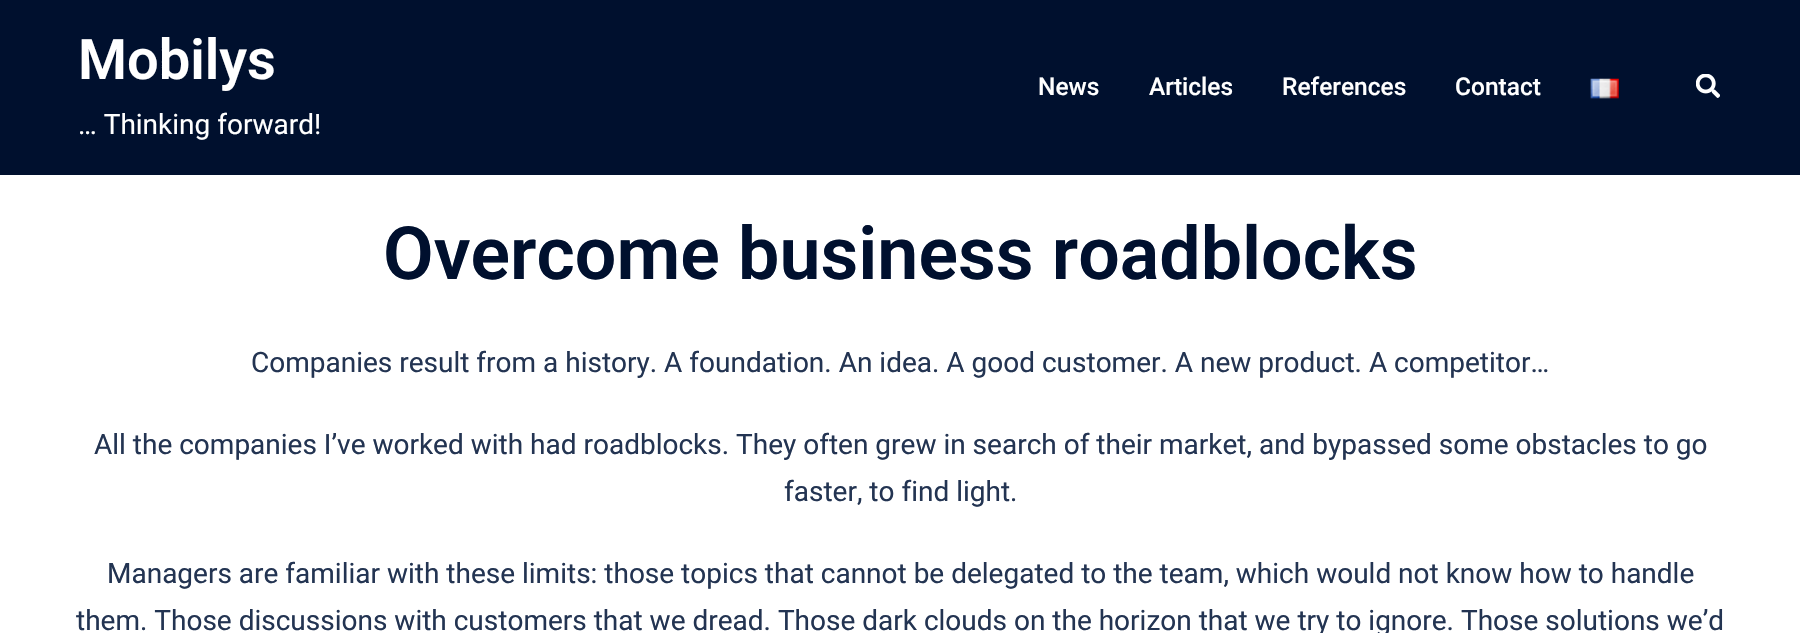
void draw(SkCanvas* canvas) {
    SkPaint paint;
    paint.setAntiAlias(true);
    auto face = [&](const char* family, int weight, float size, bool italic = false) {
        SkFontStyle style(weight, SkFontStyle::kNormal_Width,
            italic ? SkFontStyle::kItalic_Slant : SkFontStyle::kUpright_Slant);
        SkFont result(fontMgr->matchFamilyStyle(family, style), size);
        result.setSubpixel(true);
        return result;
    };
    auto write = [&](const char* s, float x, float y, const SkFont& font, SkColor color) {
        SkPaint ink(SkColor4f::FromColor(color));
        ink.setAntiAlias(true);
        canvas->drawString(s, x, y, font, ink);
    };
    auto block = [&](float x, float y, float w, float h, SkColor color) {
        SkPaint ink(SkColor4f::FromColor(color));
        ink.setAntiAlias(true);
        canvas->drawRect(SkRect::MakeXYWH(x, y, w, h), ink);
    };
    auto paste = [&](const char* path, float x, float y, float w, float h) {
        auto image = SkImages::DeferredFromEncodedData(SkData::MakeFromFileName(path));
        canvas->drawImageRect(image, SkRect::MakeXYWH(x, y, w, h), SkSamplingOptions());
    };
    canvas->clear(SK_ColorWHITE);
    block(0, 0, 1800, 175, SkColorSetRGB(0, 16, 46));
    auto kFont1 = face("Roboto", 600, 56);
    write("Mobilys", 78, 79, kFont1, SK_ColorWHITE);
    auto kFont2 = face("Roboto", 400, 28);
    write("… Thinking forward!", 78, 134, kFont2, SK_ColorWHITE);
    auto kFont3 = face("Roboto", 500, 24.5f);
    write("News", 1038, 95, kFont3, SK_ColorWHITE);
    write("Articles", 1149, 95, kFont3, SK_ColorWHITE);
    write("References", 1282, 95, kFont3, SK_ColorWHITE);
    write("Contact", 1455, 95, kFont3, SK_ColorWHITE);
    paste("pic1.png", 1590, 78, 29, 21);
    paste("pic2.png", 1696, 74, 24, 24);
    auto kFont4 = face("Roboto", 600, 73.5f);
    write("Overcome business roadblocks", 383, 279, kFont4, SkColorSetRGB(0, 16, 46));
    write("Companies result from a history. A foundation. An idea. A good customer. A new product. A competitor…", 251, 372, kFont2, SkColorSetRGB(35, 52, 82));
    write("All the companies I’ve worked with had roadblocks. They often grew in search of their market, and bypassed some obstacles to go", 94, 454, kFont2, SkColorSetRGB(35, 52, 82));
    write("faster, to find light.", 784, 501, kFont2, SkColorSetRGB(35, 52, 82));
    write("Managers are familiar with these limits: those topics that cannot be delegated to the team, which would not know how to handle", 107, 583, kFont2, SkColorSetRGB(35, 52, 82));
    write("them. Those discussions with customers that we dread. Those dark clouds on the horizon that we try to ignore. Those solutions we’d", 76, 630, kFont2, SkColorSetRGB(35, 52, 82));
}
